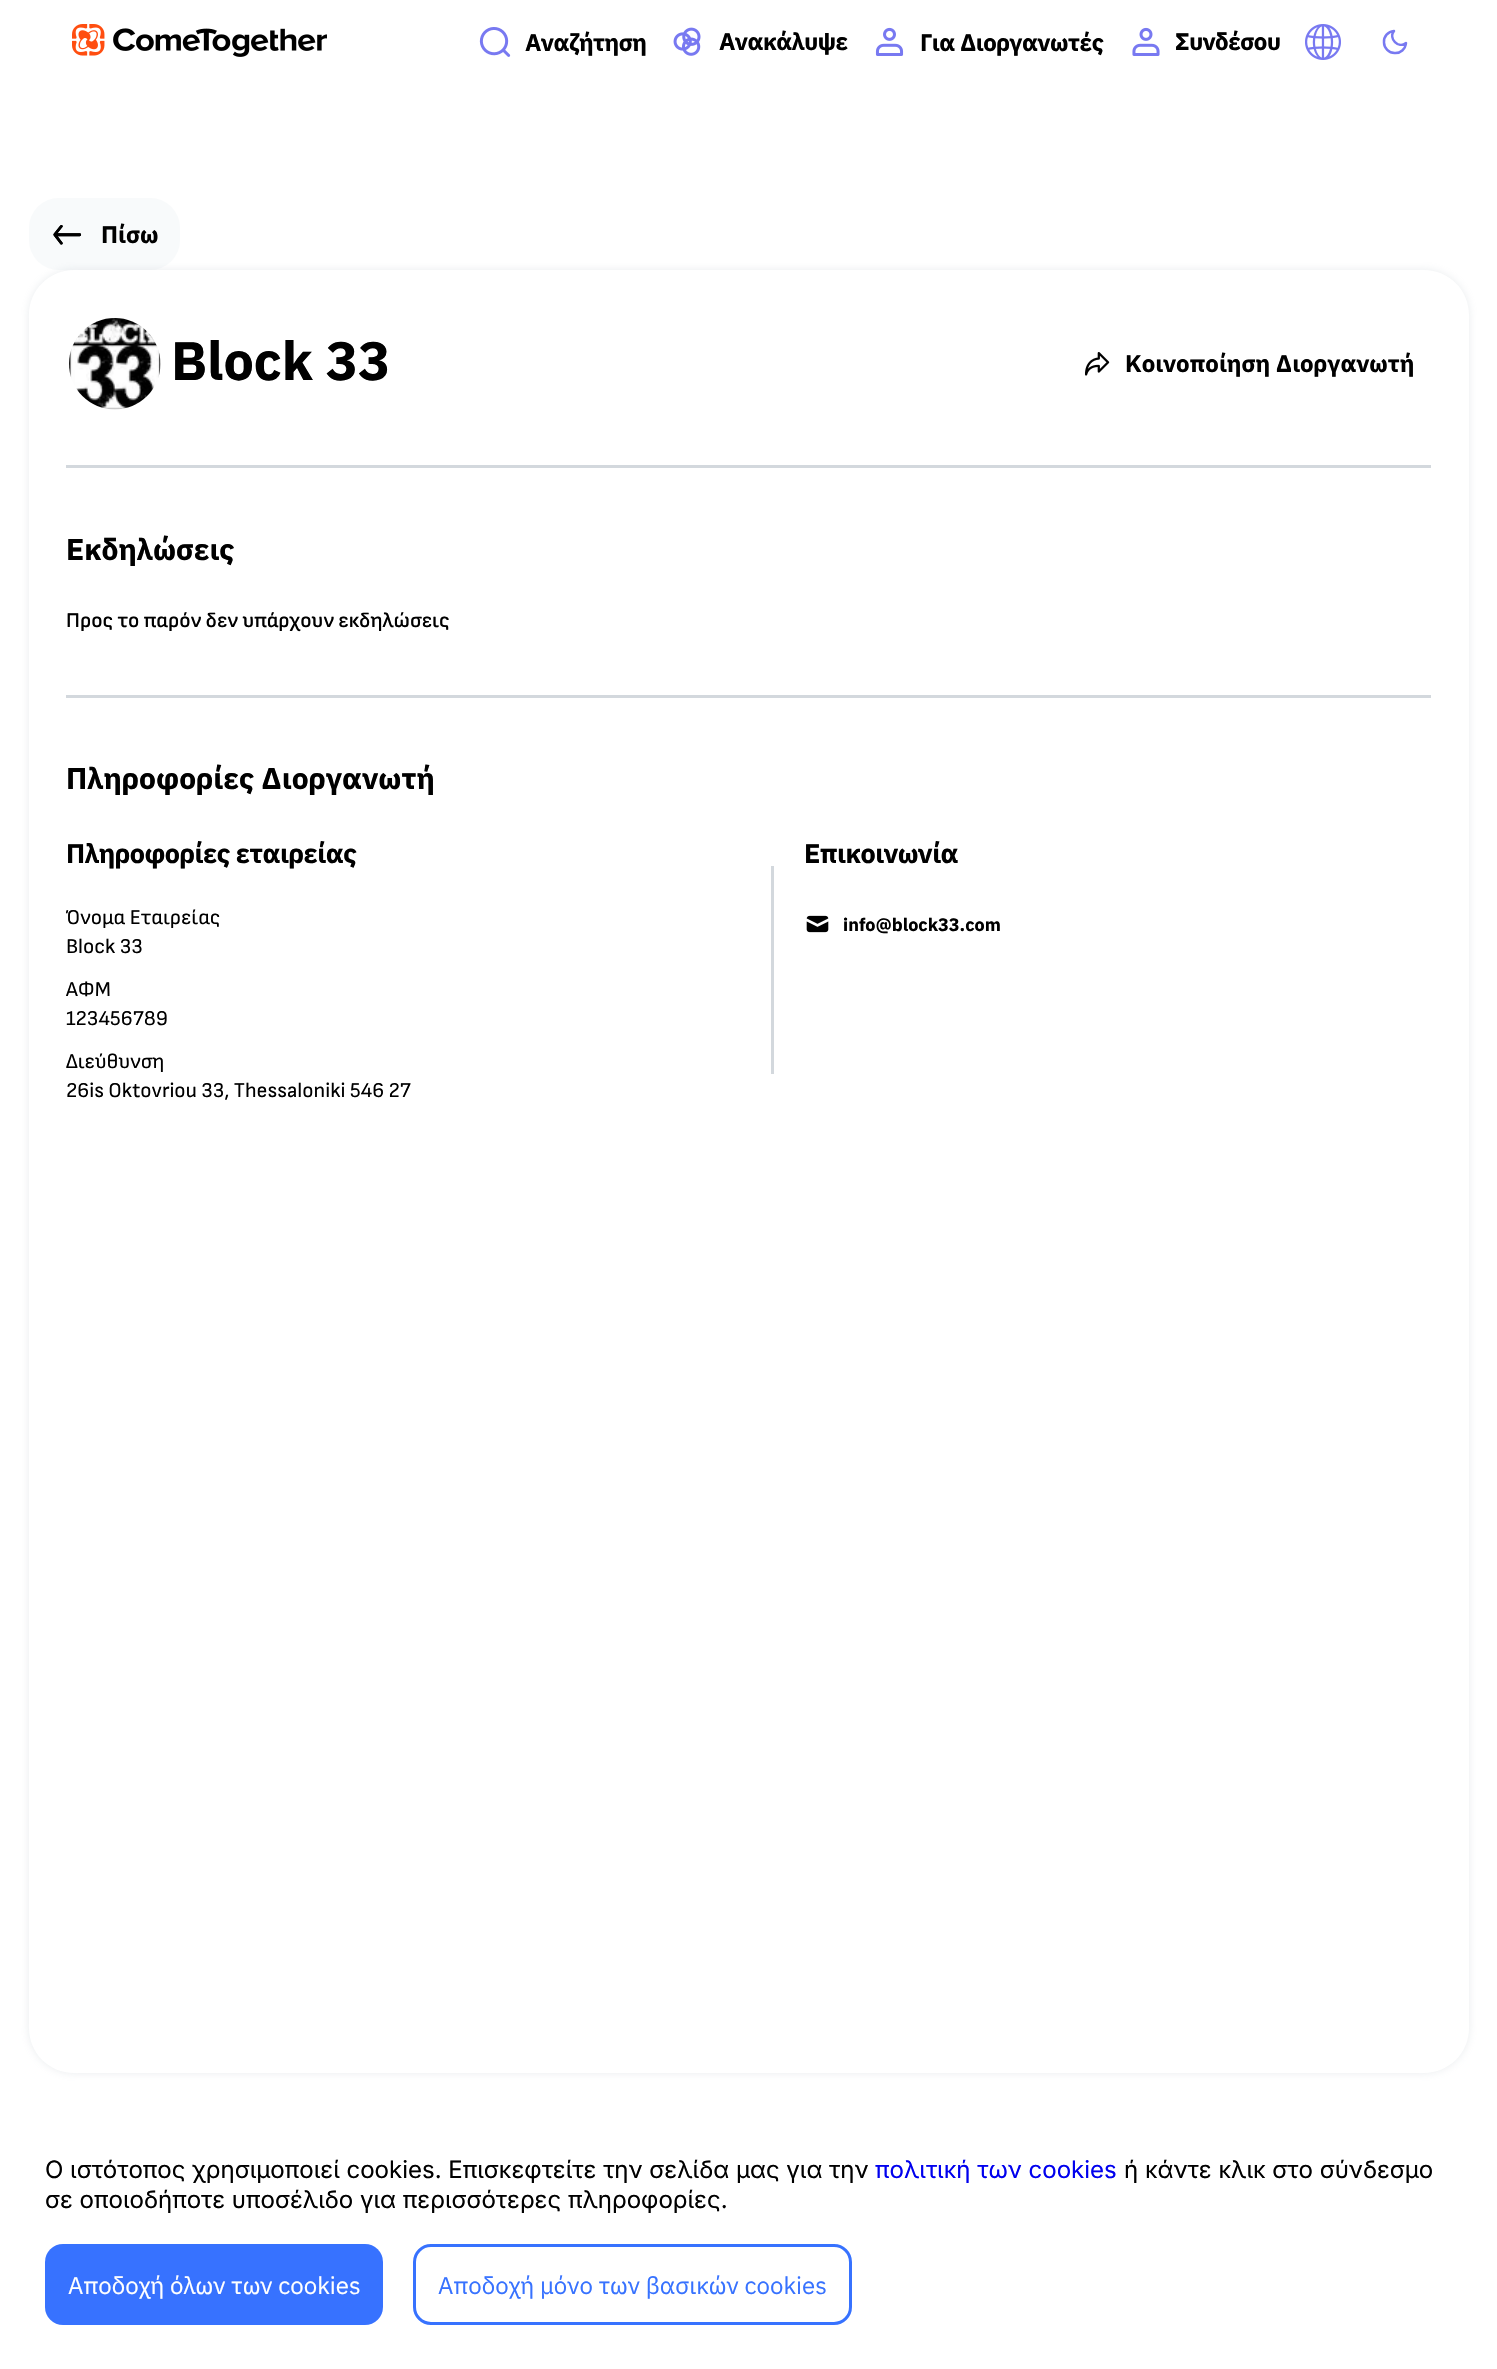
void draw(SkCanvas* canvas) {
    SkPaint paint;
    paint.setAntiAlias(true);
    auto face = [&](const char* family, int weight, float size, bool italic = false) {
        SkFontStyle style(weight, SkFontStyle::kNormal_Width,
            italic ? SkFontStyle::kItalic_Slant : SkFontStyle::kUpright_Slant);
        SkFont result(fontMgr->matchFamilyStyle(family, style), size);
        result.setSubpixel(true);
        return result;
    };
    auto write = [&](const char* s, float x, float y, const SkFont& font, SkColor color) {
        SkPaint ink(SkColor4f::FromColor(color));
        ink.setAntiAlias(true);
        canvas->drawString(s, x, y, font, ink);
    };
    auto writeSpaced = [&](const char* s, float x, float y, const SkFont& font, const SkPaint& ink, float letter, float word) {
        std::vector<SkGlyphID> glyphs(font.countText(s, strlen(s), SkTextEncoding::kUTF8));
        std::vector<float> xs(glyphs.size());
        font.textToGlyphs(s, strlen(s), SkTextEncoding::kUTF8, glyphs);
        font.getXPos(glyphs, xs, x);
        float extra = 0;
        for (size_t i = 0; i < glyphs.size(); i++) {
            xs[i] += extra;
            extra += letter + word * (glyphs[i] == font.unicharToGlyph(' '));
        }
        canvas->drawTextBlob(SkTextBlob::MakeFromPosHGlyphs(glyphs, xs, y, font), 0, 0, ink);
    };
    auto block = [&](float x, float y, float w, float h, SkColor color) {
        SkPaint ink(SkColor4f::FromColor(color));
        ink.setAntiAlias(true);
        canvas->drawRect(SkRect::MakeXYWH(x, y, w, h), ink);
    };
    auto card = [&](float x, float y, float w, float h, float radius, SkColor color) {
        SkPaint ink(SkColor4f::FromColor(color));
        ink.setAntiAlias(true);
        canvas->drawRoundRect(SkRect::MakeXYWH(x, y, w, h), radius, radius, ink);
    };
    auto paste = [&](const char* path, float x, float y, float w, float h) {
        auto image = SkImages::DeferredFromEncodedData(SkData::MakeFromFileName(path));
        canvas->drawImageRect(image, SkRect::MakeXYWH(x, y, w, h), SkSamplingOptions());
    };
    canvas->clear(SK_ColorWHITE);
    paste("pic1.png", 72, 24, 255, 33);
    paste("pic2.png", 479, 27, 32, 30);
    auto kFont1 = face("IBM Plex Sans", 700, 24);
    paint.setColor(SK_ColorBLACK);
    writeSpaced("Αναζήτηση", 525, 51, kFont1, paint, -0.5f, 0);
    paste("pic3.png", 673, 27, 28, 29);
    writeSpaced("Ανακάλυψε", 719, 50, kFont1, paint, -0.5f, 0);
    paste("pic4.png", 875, 27, 29, 29);
    writeSpaced("Για Διοργανωτές", 920, 51, kFont1, paint, -0.5f, 0);
    paste("pic5.png", 1132, 27, 28, 29);
    writeSpaced("Συνδέσου", 1175, 50, kFont1, paint, -0.5f, 0);
    paste("pic6.png", 1305, 24, 36, 36);
    paint.setStyle(SkPaint::kStroke_Style);
    paint.setStrokeWidth(2.5f);
    paint.setStrokeCap(SkPaint::kRound_Cap);
    paint.setStrokeJoin(SkPaint::kRound_Join);
    paint.setColor(SkColorSetRGB(120, 121, 241));
    canvas->drawPath(SkPathBuilder().moveTo(1406, 43).cubicTo(1405.5f, 49, 1400.5f, 53.5f, 1394.5f, 53).cubicTo(1389, 53, 1384, 48, 1384, 42.5f).cubicTo(1383.5f, 36.5f, 1388, 31.5f, 1394, 31).cubicTo(1388, 38.5f, 1398.5f, 49, 1406, 43).close().detach(), paint);
    card(29, 198, 151, 72, 30, SkColorSetRGB(248, 250, 251));
    paste("pic7.png", 53, 225, 29, 20);
    write("Πίσω", 101, 243, kFont1, SK_ColorBLACK);
    canvas->save();
    canvas->clipPath(SkPathBuilder(SkPathFillType::kEvenOdd).moveTo(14, 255).lineTo(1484, 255).lineTo(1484, 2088).lineTo(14, 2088).close().moveTo(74, 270).lineTo(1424, 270).cubicTo(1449, 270, 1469, 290, 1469, 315).lineTo(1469, 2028).cubicTo(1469, 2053, 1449, 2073, 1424, 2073).lineTo(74, 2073).cubicTo(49, 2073, 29, 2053, 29, 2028).lineTo(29, 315).cubicTo(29, 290, 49, 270, 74, 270).close().detach(), true);
    paint.setStyle(SkPaint::kFill_Style);
    paint.setColor(SkColorSetARGB(51, 145, 158, 171));
    paint.setMaskFilter(SkMaskFilter::MakeBlur(kNormal_SkBlurStyle, 4.5f));
    canvas->drawRoundRect(SkRect::MakeXYWH(29, 270, 1440, 1803), 45, 45, paint);
    paint.setMaskFilter(nullptr);
    canvas->restore();
    paste("pic8.png", 69, 318, 92, 92);
    auto kFont2 = face("IBM Plex Sans", 700, 54);
    write("Block 33", 171, 380, kFont2, SK_ColorBLACK);
    paste("pic9.png", 1085, 352, 25, 24);
    write("Κοινοποίηση Διοργανωτή", 1125, 372, kFont1, SK_ColorBLACK);
    block(66, 465, 1365, 3, SkColorSetRGB(211, 216, 221));
    auto kFont3 = face("IBM Plex Sans", 700, 30);
    write("Εκδηλώσεις", 66, 560, kFont3, SK_ColorBLACK);
    auto kFont4 = face("Sofia Sans", 600, 21);
    write("Προς το παρόν δεν υπάρχουν εκδηλώσεις", 66, 627, kFont4, SK_ColorBLACK);
    block(66, 695, 1365, 3, SkColorSetRGB(211, 216, 221));
    write("Πληροφορίες Διοργανωτή", 66, 789, kFont3, SK_ColorBLACK);
    auto kFont5 = face("IBM Plex Sans", 700, 27);
    paint.setColor(SK_ColorBLACK);
    writeSpaced("Πληροφορίες εταιρείας", 66, 863, kFont5, paint, -0.5f, 0);
    auto kFont6 = face("Sofia Sans", 400, 21);
    write("Όνομα Εταιρείας", 66, 924, kFont6, SK_ColorBLACK);
    write("Block 33", 66, 953, kFont6, SK_ColorBLACK);
    write("ΑΦΜ", 66, 996, kFont6, SK_ColorBLACK);
    write("123456789", 66, 1025, kFont6, SK_ColorBLACK);
    write("Διεύθυνση", 66, 1068, kFont6, SK_ColorBLACK);
    write("26is Oktovriou 33, Thessaloniki 546 27", 66, 1097, kFont6, SK_ColorBLACK);
    block(771, 866, 3, 208, SkColorSetRGB(211, 216, 221));
    writeSpaced("Επικοινωνία", 804, 863, kFont5, paint, -0.5f, 0);
    paste("pic10.png", 806, 915, 23, 18);
    auto kFont7 = face("IBM Plex Sans", 700, 18);
    write("info@block33.com", 843, 931, kFont7, SK_ColorBLACK);
    auto kFont8 = face("Inter", 400, 24);
    write("Ο ιστότοπος χρησιμοποιεί cookies. Επισκεφτείτε την σελίδα μας για την", 45, 2178, kFont8, SK_ColorBLACK);
    write("πολιτική των cookies", 875, 2178, kFont8, SkColorSetRGB(0, 0, 238));
    write("ή κάντε κλικ στο σύνδεσμο", 1124, 2178, kFont8, SK_ColorBLACK);
    write("σε οποιοδήποτε υποσέλιδο για περισσότερες πληροφορίες.", 45, 2208, kFont8, SK_ColorBLACK);
    card(45, 2244, 338, 81, 18, SkColorSetRGB(55, 114, 255));
    auto kFont9 = face("IBM Plex Sans", 400, 24);
    write("Αποδοχή όλων των cookies", 68, 2294, kFont9, SK_ColorWHITE);
    paint.setStyle(SkPaint::kStroke_Style);
    paint.setStrokeWidth(3);
    paint.setStrokeCap(SkPaint::kButt_Cap);
    paint.setStrokeJoin(SkPaint::kMiter_Join);
    paint.setColor(SkColorSetRGB(55, 114, 255));
    canvas->drawRoundRect(SkRect::MakeXYWH(414.5f, 2245.5f, 436, 78), 16.5f, 16.5f, paint);
    write("Αποδοχή μόνο των βασικών cookies", 438, 2294, kFont9, SkColorSetRGB(55, 114, 255));
}
